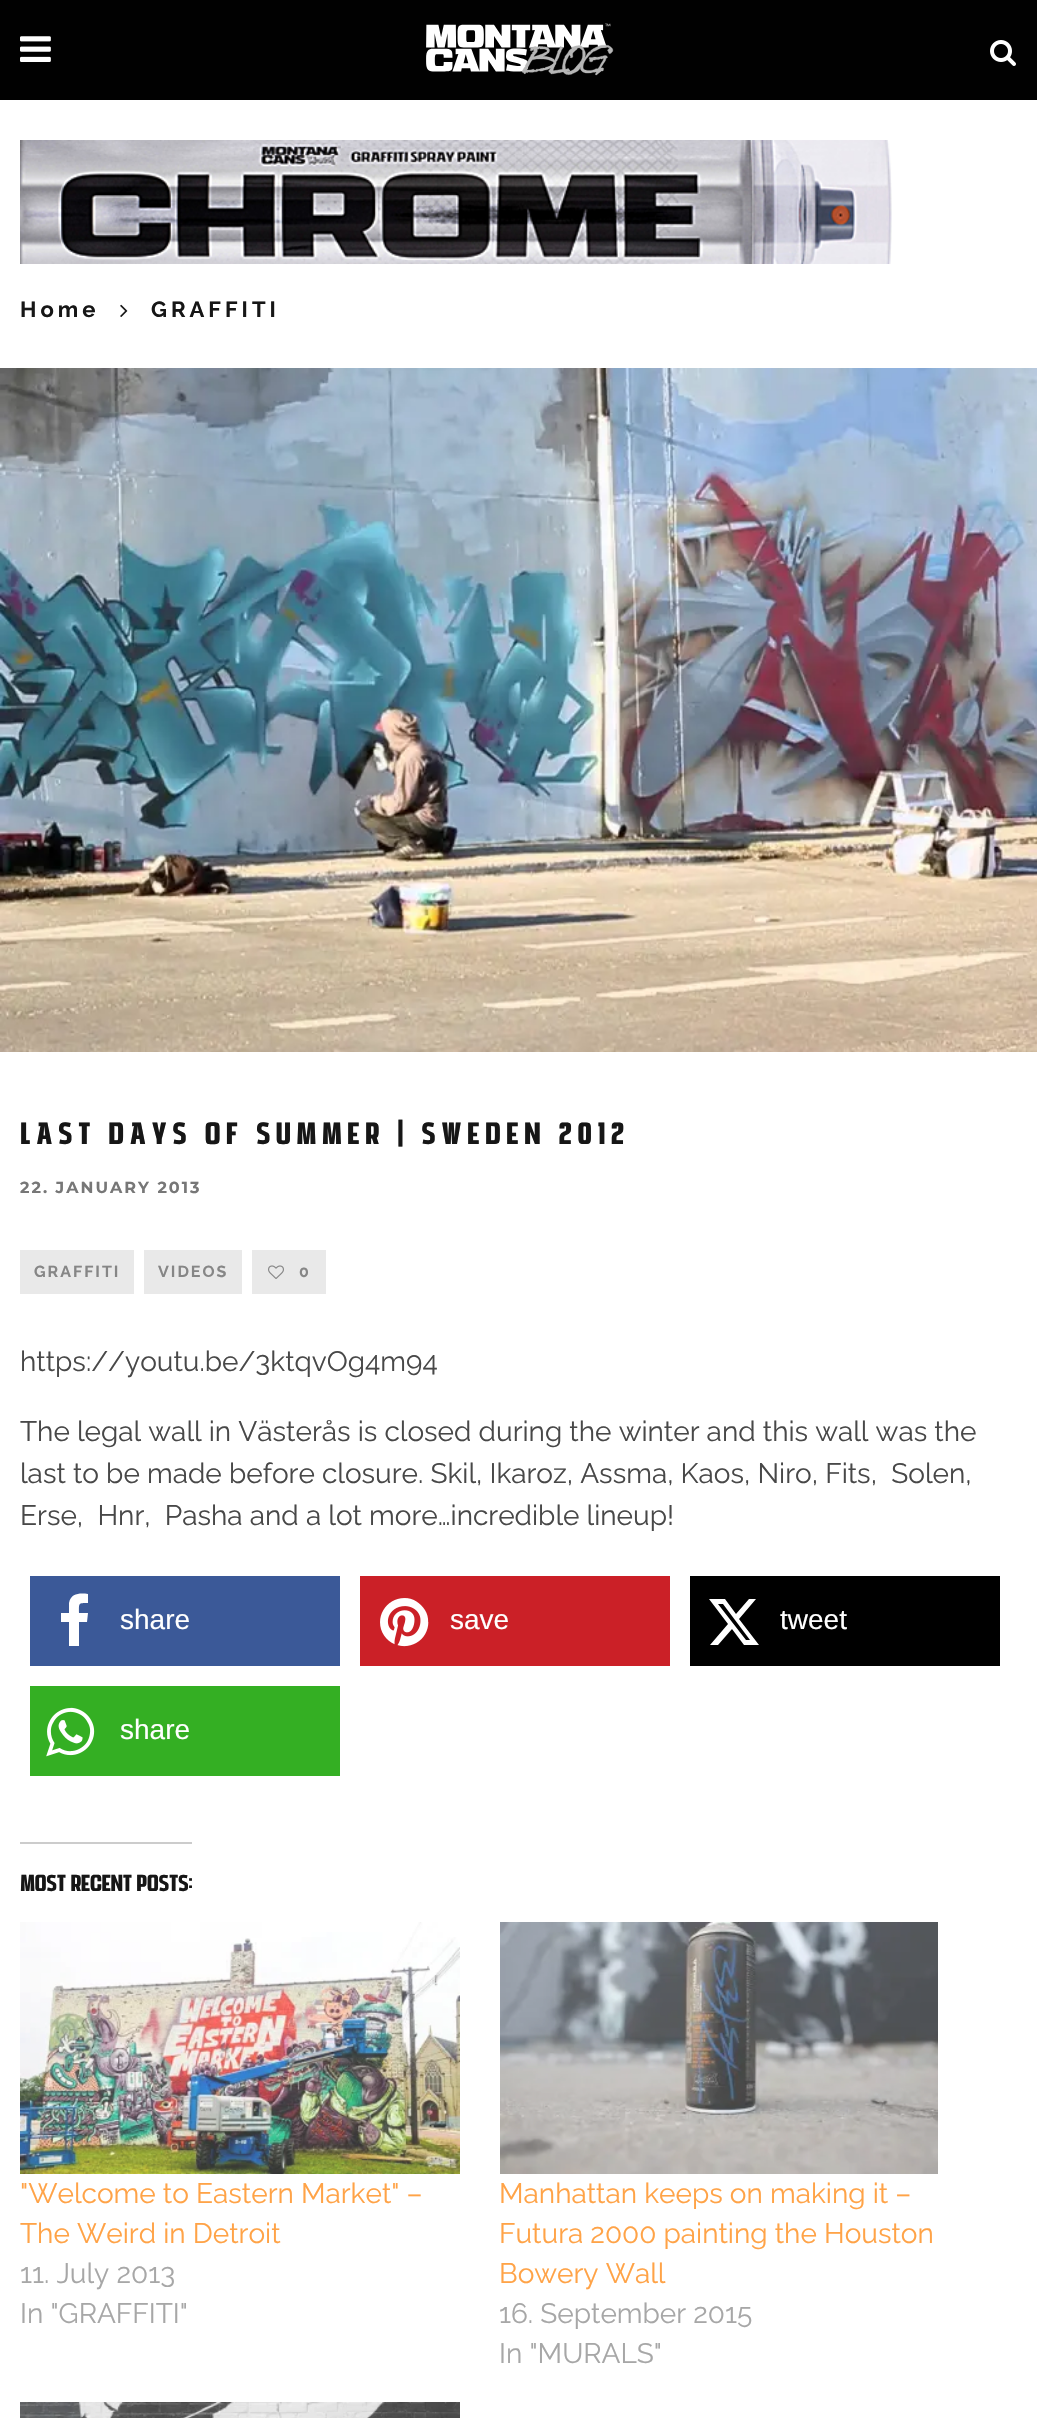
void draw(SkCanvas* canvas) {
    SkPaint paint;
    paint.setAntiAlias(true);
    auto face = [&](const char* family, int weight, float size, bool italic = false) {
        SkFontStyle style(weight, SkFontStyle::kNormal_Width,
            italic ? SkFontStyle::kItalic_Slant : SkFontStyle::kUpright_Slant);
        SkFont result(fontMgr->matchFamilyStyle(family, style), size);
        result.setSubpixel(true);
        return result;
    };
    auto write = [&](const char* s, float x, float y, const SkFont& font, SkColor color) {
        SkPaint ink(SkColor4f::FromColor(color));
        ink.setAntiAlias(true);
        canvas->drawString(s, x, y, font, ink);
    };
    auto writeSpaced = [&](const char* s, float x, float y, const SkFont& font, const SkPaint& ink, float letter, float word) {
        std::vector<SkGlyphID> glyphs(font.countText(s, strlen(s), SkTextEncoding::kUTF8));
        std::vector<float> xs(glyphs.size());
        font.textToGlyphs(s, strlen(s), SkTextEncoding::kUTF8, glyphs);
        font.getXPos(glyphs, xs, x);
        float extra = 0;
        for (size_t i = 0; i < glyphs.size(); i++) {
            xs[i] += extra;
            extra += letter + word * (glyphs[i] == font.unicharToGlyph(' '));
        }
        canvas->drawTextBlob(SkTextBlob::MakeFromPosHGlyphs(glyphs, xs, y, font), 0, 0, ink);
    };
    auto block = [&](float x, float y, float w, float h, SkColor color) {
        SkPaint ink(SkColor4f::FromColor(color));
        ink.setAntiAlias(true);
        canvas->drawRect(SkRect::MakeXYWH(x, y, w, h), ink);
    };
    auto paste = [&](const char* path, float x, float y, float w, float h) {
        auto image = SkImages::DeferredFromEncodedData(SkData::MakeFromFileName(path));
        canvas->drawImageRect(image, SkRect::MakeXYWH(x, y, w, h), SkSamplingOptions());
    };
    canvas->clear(SK_ColorWHITE);
    block(0, 0, 1037, 100, SkColorSetRGB(1, 1, 1));
    paste("pic1.png", 20, 36, 31, 26);
    paste("pic2.png", 426, 23, 188, 53);
    paste("pic3.png", 990, 40, 26, 26);
    paste("pic4.png", 20, 140, 872, 124);
    auto kFont1 = face("Raleway", 700, 22);
    paint.setColor(SkColorSetRGB(22, 22, 22));
    writeSpaced("Home", 20, 317, kFont1, paint, 4, 0);
    paste("pic5.png", 120, 304, 8, 13);
    writeSpaced("GRAFFITI", 151, 317, kFont1, paint, 4, 0);
    paste("pic6.png", 0, 368, 1037, 684);
    auto kFont2 = face("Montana", 700, 32);
    writeSpaced("LAST DAYS OF SUMMER | SWEDEN 2012", 20, 1144, kFont2, paint, 6, 0);
    auto kFont3 = face("Montserrat", 700, 16);
    paint.setColor(SkColorSetRGB(119, 119, 119));
    writeSpaced("22. JANUARY 2013", 20, 1193, kFont3, paint, 2, 0);
    block(20, 1250, 114, 44, SkColorSetRGB(233, 233, 233));
    auto kFont4 = face("Raleway", 700, 16);
    paint.setColor(SkColorSetRGB(134, 134, 134));
    writeSpaced("GRAFFITI", 34, 1277, kFont4, paint, 2, 0);
    block(144, 1250, 98, 44, SkColorSetRGB(233, 233, 233));
    writeSpaced("VIDEOS", 158, 1277, kFont4, paint, 2, 0);
    block(252, 1250, 74, 44, SkColorSetRGB(233, 233, 233));
    paste("pic7.png", 268, 1265, 16, 14);
    writeSpaced("0", 299, 1277, kFont4, paint, 4, 0);
    auto kFont5 = face("Raleway", 400, 28);
    write("https://youtu.be/3ktqvOg4m94", 20, 1371, kFont5, SkColorSetRGB(72, 72, 72));
    write("The legal wall in Västerås is closed during the winter and this wall was the", 20, 1441, kFont5, SkColorSetRGB(72, 72, 72));
    write("last to be made before closure. Skil, Ikaroz, Assma, Kaos, Niro, Fits,  Solen,", 20, 1483, kFont5, SkColorSetRGB(72, 72, 72));
    write("Erse,  Hnr,  Pasha and a lot more…incredible lineup!", 20, 1525, kFont5, SkColorSetRGB(72, 72, 72));
    block(30, 1576, 310, 90, SkColorSetRGB(59, 89, 152));
    paint.setColor(SK_ColorWHITE);
    canvas->drawPath(SkPathBuilder().moveTo(88, 1594).lineTo(88, 1603).cubicTo(78, 1603, 79, 1603, 79, 1613).lineTo(88, 1613).lineTo(87, 1622).lineTo(79, 1622).lineTo(79, 1646).lineTo(69, 1646).lineTo(69, 1622).lineTo(61, 1622).lineTo(61, 1613).lineTo(69, 1613).lineTo(69, 1603).cubicTo(71, 1593, 80, 1593, 88, 1594).close().detach(), paint);
    auto kFont6 = face("Liberation Sans", 400, 28);
    write("share", 120, 1629, kFont6, SK_ColorWHITE);
    block(360, 1576, 310, 90, SkColorSetRGB(203, 32, 39));
    paste("pic8.png", 380, 1598, 49, 49);
    write("save", 450, 1629, kFont6, SK_ColorWHITE);
    block(690, 1576, 310, 90, SK_ColorBLACK);
    canvas->drawPath(SkPathBuilder().moveTo(749, 1599).lineTo(756, 1599).lineTo(739, 1619).lineTo(759, 1645).lineTo(744, 1645).lineTo(732, 1629).lineTo(718, 1645).lineTo(710, 1645).lineTo(728, 1624).lineTo(709, 1599).lineTo(725, 1599).lineTo(736, 1614).close().moveTo(746, 1640).lineTo(750, 1640).lineTo(723, 1604).lineTo(718, 1604).close().detach(), paint);
    write("tweet", 780, 1629, kFont6, SK_ColorWHITE);
    block(30, 1686, 310, 90, SkColorSetRGB(52, 175, 35));
    paste("pic9.png", 46, 1707, 49, 50);
    write("share", 120, 1739, kFont6, SK_ColorWHITE);
    block(20, 1842, 172, 2, SkColorSetRGB(204, 204, 204));
    auto kFont7 = face("Montana", 700, 24);
    write("most recent posts:", 20, 1891, kFont7, SkColorSetRGB(22, 22, 22));
    paste("pic10.png", 20, 1922, 440, 252);
    write("\"Welcome to Eastern Market\" –", 20, 2203, kFont5, SkColorSetRGB(255, 163, 71));
    write("The Weird in Detroit", 20, 2243, kFont5, SkColorSetRGB(255, 163, 71));
    write("11. July 2013", 20, 2283, kFont5, SkColorSetRGB(167, 167, 167));
    write("In \"GRAFFITI\"", 20, 2323, kFont5, SkColorSetRGB(167, 167, 167));
    paste("pic11.png", 500, 1922, 438, 252);
    write("Manhattan keeps on making it –", 499, 2203, kFont5, SkColorSetRGB(255, 163, 71));
    write("Futura 2000 painting the Houston", 499, 2243, kFont5, SkColorSetRGB(255, 163, 71));
    write("Bowery Wall", 499, 2283, kFont5, SkColorSetRGB(255, 163, 71));
    write("16. September 2015", 499, 2323, kFont5, SkColorSetRGB(167, 167, 167));
    write("In \"MURALS\"", 499, 2363, kFont5, SkColorSetRGB(167, 167, 167));
    paste("pic12.png", 20, 2402, 440, 16);
}
